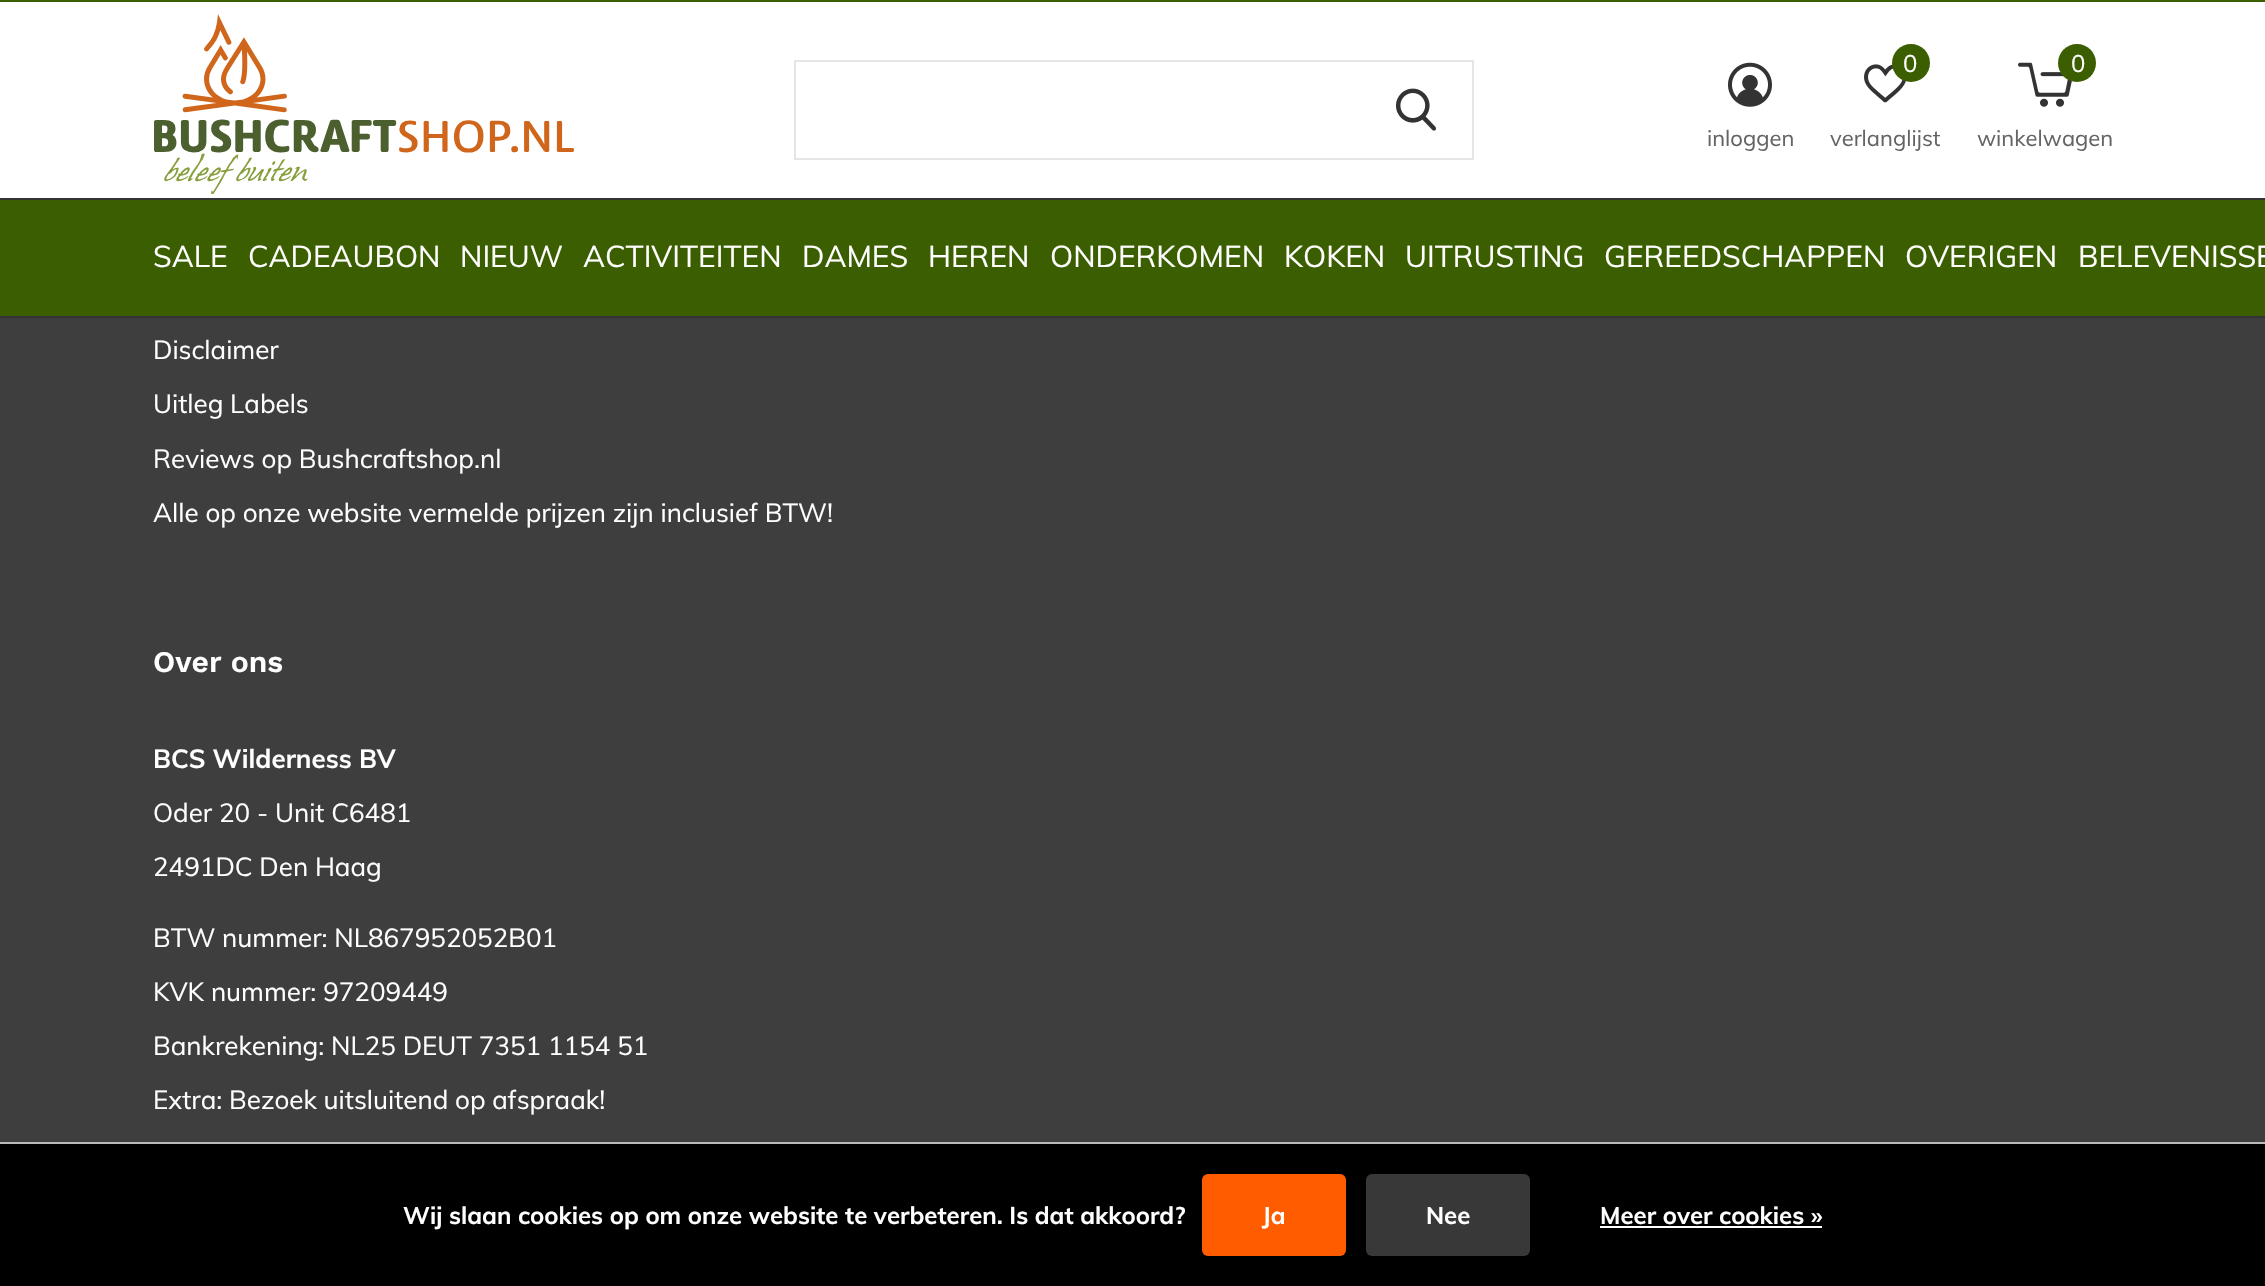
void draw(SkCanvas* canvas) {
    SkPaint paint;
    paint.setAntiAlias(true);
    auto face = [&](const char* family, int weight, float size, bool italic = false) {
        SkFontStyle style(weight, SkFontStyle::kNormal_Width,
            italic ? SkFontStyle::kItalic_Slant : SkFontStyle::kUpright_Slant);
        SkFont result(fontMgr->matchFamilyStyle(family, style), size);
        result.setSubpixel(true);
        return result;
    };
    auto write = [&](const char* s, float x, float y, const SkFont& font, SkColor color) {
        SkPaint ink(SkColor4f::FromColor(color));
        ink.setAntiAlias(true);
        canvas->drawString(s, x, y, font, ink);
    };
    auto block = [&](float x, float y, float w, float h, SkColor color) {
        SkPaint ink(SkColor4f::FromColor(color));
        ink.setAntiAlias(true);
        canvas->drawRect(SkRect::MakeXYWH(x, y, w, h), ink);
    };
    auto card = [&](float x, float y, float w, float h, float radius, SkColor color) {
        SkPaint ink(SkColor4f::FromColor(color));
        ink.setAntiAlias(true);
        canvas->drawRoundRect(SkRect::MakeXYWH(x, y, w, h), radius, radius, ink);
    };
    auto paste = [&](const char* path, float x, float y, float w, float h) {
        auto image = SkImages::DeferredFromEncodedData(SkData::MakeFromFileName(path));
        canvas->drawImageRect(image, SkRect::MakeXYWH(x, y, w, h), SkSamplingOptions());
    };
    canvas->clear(SkColorSetRGB(62, 62, 62));
    block(0, 0, 2265, 2, SkColorSetRGB(59, 94, 0));
    block(0, 2, 2265, 196, SK_ColorWHITE);
    paste("pic1.png", 154, 14, 420, 180);
    paste("pic2.png", 1728, 62, 44, 45);
    auto kFont1 = face("Muli", 400, 22);
    write("inloggen", 1707, 146, kFont1, SkColorSetRGB(100, 100, 100));
    paste("pic3.png", 1864, 64, 42, 39);
    paint.setColor(SkColorSetRGB(59, 94, 0));
    canvas->drawCircle(1911, 63, 19, paint);
    auto kFont2 = face("Muli", 400, 24);
    write("0", 1903, 72, kFont2, SK_ColorWHITE);
    write("verlanglijst", 1830, 146, kFont1, SkColorSetRGB(100, 100, 100));
    paste("pic4.png", 2018, 62, 54, 45);
    canvas->drawCircle(2077, 63, 19, paint);
    write("0", 2071, 72, kFont2, SK_ColorWHITE);
    write("winkelwagen", 1977, 146, kFont1, SkColorSetRGB(100, 100, 100));
    block(0, 200, 2265, 116, SkColorSetRGB(59, 94, 0));
    block(0, 198, 2265, 2, SkColorSetRGB(51, 51, 51));
    block(0, 316, 2265, 2, SkColorSetRGB(51, 51, 51));
    auto kFont3 = face("Muli", 400, 30);
    write("SALE", 153, 267, kFont3, SK_ColorWHITE);
    write("CADEAUBON", 248, 267, kFont3, SK_ColorWHITE);
    write("NIEUW", 460, 267, kFont3, SK_ColorWHITE);
    write("ACTIVITEITEN", 583, 267, kFont3, SK_ColorWHITE);
    write("DAMES", 802, 267, kFont3, SK_ColorWHITE);
    write("HEREN", 928, 267, kFont3, SK_ColorWHITE);
    write("ONDERKOMEN", 1050, 267, kFont3, SK_ColorWHITE);
    write("KOKEN", 1284, 267, kFont3, SK_ColorWHITE);
    write("UITRUSTING", 1405, 267, kFont3, SK_ColorWHITE);
    write("GEREEDSCHAPPEN", 1604, 267, kFont3, SK_ColorWHITE);
    write("OVERIGEN", 1905, 267, kFont3, SK_ColorWHITE);
    write("BELEVENISSE", 2078, 267, kFont3, SK_ColorWHITE);
    paint.setStyle(SkPaint::kStroke_Style);
    paint.setStrokeWidth(2);
    paint.setColor(SkColorSetRGB(229, 229, 229));
    canvas->drawRect(SkRect::MakeXYWH(795, 61, 678, 98), paint);
    paste("pic5.png", 1396, 88, 40, 43);
    auto kFont4 = face("Muli", 400, 26);
    write("Disclaimer", 153, 359, kFont4, SK_ColorWHITE);
    write("Uitleg Labels", 153, 413, kFont4, SK_ColorWHITE);
    write("Reviews op Bushcraftshop.nl", 153, 468, kFont4, SK_ColorWHITE);
    write("Alle op onze website vermelde prijzen zijn inclusief BTW!", 153, 522, kFont4, SK_ColorWHITE);
    auto kFont5 = face("Work Sans", 600, 30);
    write("Over ons", 153, 672, kFont5, SK_ColorWHITE);
    auto kFont6 = face("Muli", 700, 26);
    write("BCS Wilderness BV", 153, 768, kFont6, SK_ColorWHITE);
    write("Oder 20 - Unit C6481", 153, 822, kFont4, SK_ColorWHITE);
    write("2491DC Den Haag", 153, 876, kFont4, SK_ColorWHITE);
    write("BTW nummer: NL867952052B01", 153, 947, kFont4, SK_ColorWHITE);
    write("KVK nummer: 97209449", 153, 1001, kFont4, SK_ColorWHITE);
    write("Bankrekening: NL25 DEUT 7351 1154 51", 153, 1055, kFont4, SK_ColorWHITE);
    write("Extra: Bezoek uitsluitend op afspraak!", 153, 1109, kFont4, SK_ColorWHITE);
    block(0, 1144, 2265, 142, SK_ColorBLACK);
    block(0, 1142, 2265, 2, SkColorSetRGB(187, 187, 187));
    auto kFont7 = face("Muli", 700, 24);
    write("Wij slaan cookies op om onze website te verbeteren. Is dat akkoord?", 403, 1224, kFont7, SK_ColorWHITE);
    card(1202, 1174, 144, 82, 6, SkColorSetRGB(255, 92, 0));
    write("Ja", 1262, 1224, kFont7, SK_ColorWHITE);
    card(1366, 1174, 164, 82, 6, SkColorSetRGB(56, 56, 56));
    write("Nee", 1426, 1224, kFont7, SK_ColorWHITE);
    write("Meer over cookies »", 1600, 1224, kFont7, SK_ColorWHITE);
    block(1600, 1226, 222, 2, SK_ColorWHITE);
}
